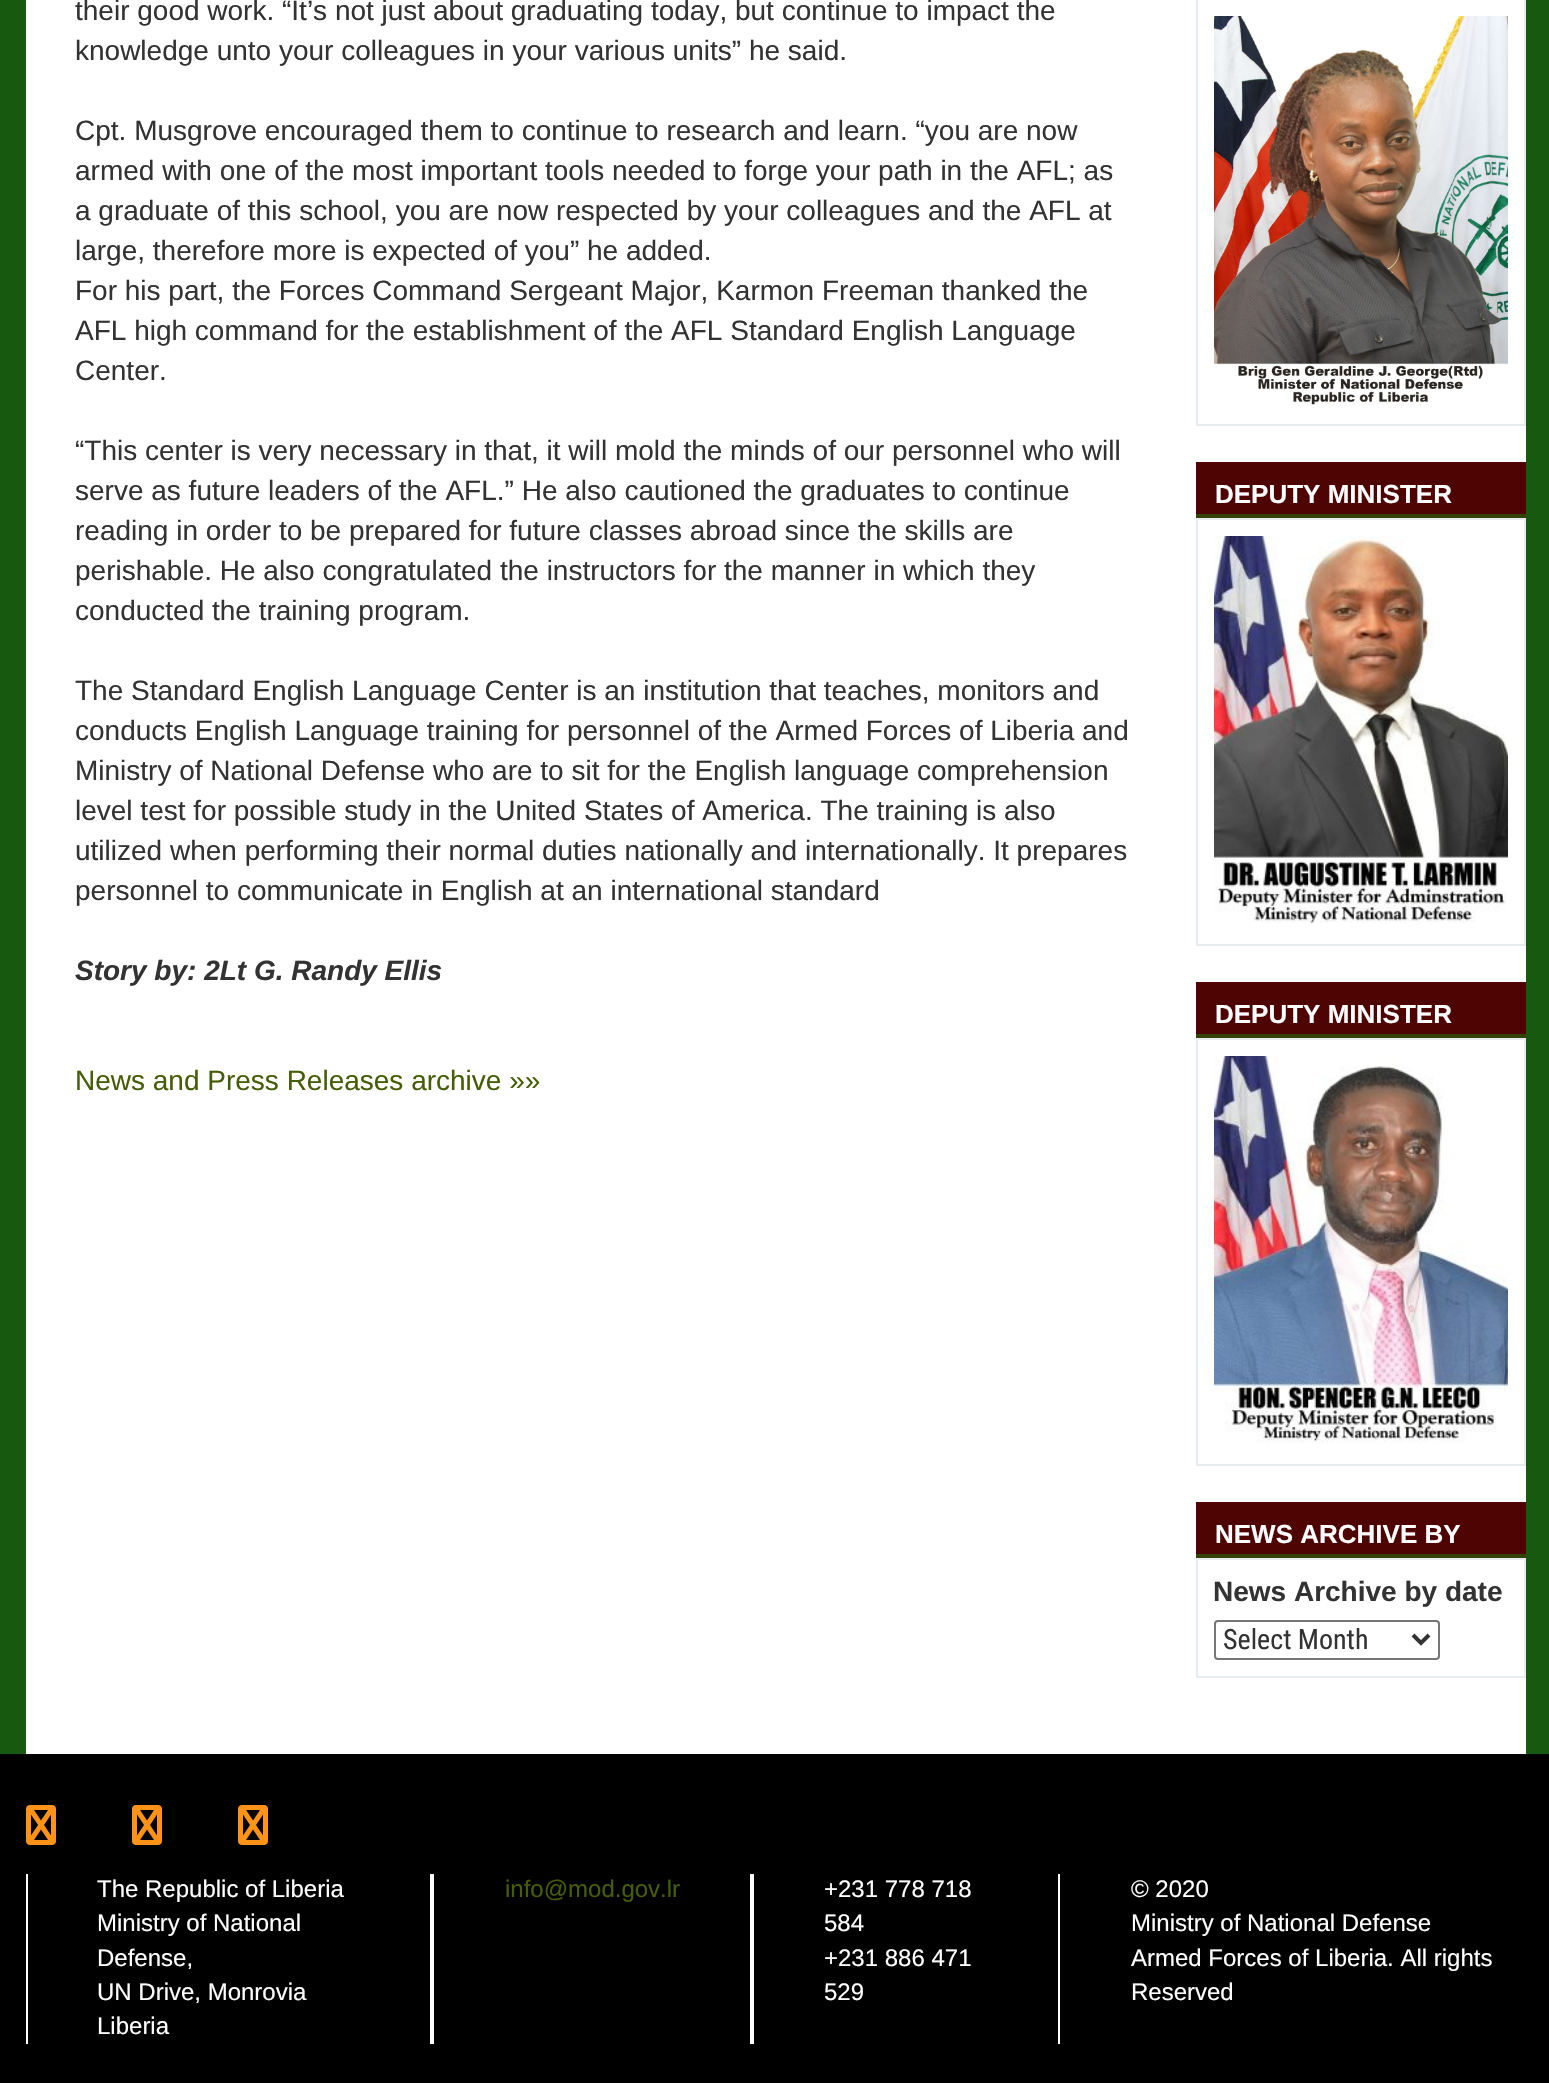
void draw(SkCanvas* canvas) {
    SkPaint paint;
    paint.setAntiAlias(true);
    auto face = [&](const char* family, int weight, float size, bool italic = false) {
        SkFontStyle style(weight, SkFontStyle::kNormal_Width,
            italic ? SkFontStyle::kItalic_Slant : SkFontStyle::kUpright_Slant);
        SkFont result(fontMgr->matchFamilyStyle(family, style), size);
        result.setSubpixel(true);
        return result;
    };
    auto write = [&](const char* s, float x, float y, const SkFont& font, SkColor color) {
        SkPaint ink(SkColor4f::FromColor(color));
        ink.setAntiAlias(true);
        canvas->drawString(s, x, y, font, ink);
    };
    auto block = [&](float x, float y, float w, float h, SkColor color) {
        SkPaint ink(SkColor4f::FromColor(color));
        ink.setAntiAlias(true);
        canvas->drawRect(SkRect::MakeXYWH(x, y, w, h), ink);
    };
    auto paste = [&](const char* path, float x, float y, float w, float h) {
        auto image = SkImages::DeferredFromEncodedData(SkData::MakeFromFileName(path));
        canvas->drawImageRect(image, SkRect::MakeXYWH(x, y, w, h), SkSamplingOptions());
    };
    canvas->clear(SkColorSetRGB(23, 89, 14));
    block(26, 0, 1500, 1754, SK_ColorWHITE);
    auto kFont1 = face("Liberation Sans", 400, 28);
    write("their good work. “It’s not just about graduating today, but continue to impact the", 75, 20, kFont1, SkColorSetRGB(51, 51, 51));
    write("knowledge unto your colleagues in your various units” he said.", 75, 60, kFont1, SkColorSetRGB(51, 51, 51));
    write("Cpt. Musgrove encouraged them to continue to research and learn. “you are now", 75, 140, kFont1, SkColorSetRGB(51, 51, 51));
    write("armed with one of the most important tools needed to forge your path in the AFL; as", 75, 180, kFont1, SkColorSetRGB(51, 51, 51));
    write("a graduate of this school, you are now respected by your colleagues and the AFL at", 75, 220, kFont1, SkColorSetRGB(51, 51, 51));
    write("large, therefore more is expected of you” he added.", 75, 260, kFont1, SkColorSetRGB(51, 51, 51));
    write("For his part, the Forces Command Sergeant Major, Karmon Freeman thanked the", 75, 300, kFont1, SkColorSetRGB(51, 51, 51));
    write("AFL high command for the establishment of the AFL Standard English Language", 75, 340, kFont1, SkColorSetRGB(51, 51, 51));
    write("Center.", 75, 380, kFont1, SkColorSetRGB(51, 51, 51));
    write("“This center is very necessary in that, it will mold the minds of our personnel who will", 75, 460, kFont1, SkColorSetRGB(51, 51, 51));
    write("serve as future leaders of the AFL.” He also cautioned the graduates to continue", 75, 500, kFont1, SkColorSetRGB(51, 51, 51));
    write("reading in order to be prepared for future classes abroad since the skills are", 75, 540, kFont1, SkColorSetRGB(51, 51, 51));
    write("perishable. He also congratulated the instructors for the manner in which they", 75, 580, kFont1, SkColorSetRGB(51, 51, 51));
    write("conducted the training program.", 75, 620, kFont1, SkColorSetRGB(51, 51, 51));
    write("The Standard English Language Center is an institution that teaches, monitors and", 75, 700, kFont1, SkColorSetRGB(51, 51, 51));
    write("conducts English Language training for personnel of the Armed Forces of Liberia and", 75, 740, kFont1, SkColorSetRGB(51, 51, 51));
    write("Ministry of National Defense who are to sit for the English language comprehension", 75, 780, kFont1, SkColorSetRGB(51, 51, 51));
    write("level test for possible study in the United States of America. The training is also", 75, 820, kFont1, SkColorSetRGB(51, 51, 51));
    write("utilized when performing their normal duties nationally and internationally. It prepares", 75, 860, kFont1, SkColorSetRGB(51, 51, 51));
    write("personnel to communicate in English at an international standard", 75, 900, kFont1, SkColorSetRGB(51, 51, 51));
    auto kFont2 = face("Liberation Sans", 700, 28, true);
    write("Story by: 2Lt G. Randy Ellis", 75, 980, kFont2, SkColorSetRGB(51, 51, 51));
    write("News and Press Releases archive »»", 75, 1090, kFont1, SkColorSetRGB(70, 93, 7));
    paint.setStyle(SkPaint::kStroke_Style);
    paint.setStrokeWidth(2);
    paint.setColor(SkColorSetRGB(231, 236, 238));
    canvas->drawRect(SkRect::MakeXYWH(1197, -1, 328, 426), paint);
    paste("pic1.png", 1214, 16, 294, 389);
    block(1196, 462, 330, 52, SkColorSetRGB(79, 4, 4));
    block(1196, 514, 330, 4, SkColorSetRGB(51, 64, 7));
    auto kFont3 = face("Liberation Sans", 700, 26);
    write("DEPUTY MINISTER", 1215, 503, kFont3, SK_ColorWHITE);
    canvas->drawRect(SkRect::MakeXYWH(1197, 519, 328, 426), paint);
    paste("pic2.png", 1214, 536, 294, 387);
    block(1196, 982, 330, 52, SkColorSetRGB(79, 4, 4));
    block(1196, 1034, 330, 4, SkColorSetRGB(51, 64, 7));
    write("DEPUTY MINISTER", 1215, 1023, kFont3, SK_ColorWHITE);
    canvas->drawRect(SkRect::MakeXYWH(1197, 1039, 328, 426), paint);
    paste("pic3.png", 1214, 1056, 294, 387);
    block(1196, 1502, 330, 52, SkColorSetRGB(79, 4, 4));
    block(1196, 1554, 330, 4, SkColorSetRGB(51, 64, 7));
    write("NEWS ARCHIVE BY", 1215, 1543, kFont3, SK_ColorWHITE);
    canvas->drawRect(SkRect::MakeXYWH(1197, 1559, 328, 118), paint);
    auto kFont4 = face("Liberation Sans", 700, 28);
    write("News Archive by date", 1213, 1601, kFont4, SkColorSetRGB(51, 51, 51));
    paint.setColor(SkColorSetRGB(118, 118, 118));
    canvas->drawRoundRect(SkRect::MakeXYWH(1215, 1621, 224, 38), 3, 3, paint);
    paint.setStrokeWidth(4);
    paint.setColor(SkColorSetRGB(51, 51, 51));
    canvas->drawPath(SkPathBuilder().moveTo(1413, 1635).lineTo(1421, 1643).lineTo(1429, 1635).detach(), paint);
    auto kFont5 = face("Roboto Condensed", 400, 28);
    write("Select Month", 1223, 1649, kFont5, SkColorSetRGB(51, 51, 51));
    block(0, 1754, 1549, 329, SK_ColorBLACK);
    paste("pic4.png", 26, 1805, 30, 40);
    paste("pic4.png", 132, 1805, 30, 40);
    paste("pic4.png", 238, 1805, 30, 40);
    block(430, 1874, 4, 170, SK_ColorWHITE);
    block(26, 1874, 2, 170, SK_ColorWHITE);
    auto kFont6 = face("Liberation Sans", 400, 24);
    write("The Republic of Liberia", 97, 1897, kFont6, SK_ColorWHITE);
    write("Ministry of National", 97, 1931, kFont6, SK_ColorWHITE);
    write("Defense,", 97, 1966, kFont6, SK_ColorWHITE);
    write("UN Drive, Monrovia", 97, 2000, kFont6, SK_ColorWHITE);
    write("Liberia", 97, 2034, kFont6, SK_ColorWHITE);
    block(750, 1874, 4, 170, SK_ColorWHITE);
    write("info@mod.gov.lr", 505, 1897, kFont6, SkColorSetRGB(70, 93, 7));
    block(1058, 1874, 2, 170, SK_ColorWHITE);
    write("+231 778 718", 824, 1897, kFont6, SK_ColorWHITE);
    write("584", 824, 1931, kFont6, SK_ColorWHITE);
    write("+231 886 471", 824, 1966, kFont6, SK_ColorWHITE);
    write("529", 824, 2000, kFont6, SK_ColorWHITE);
    write("© 2020", 1131, 1897, kFont6, SK_ColorWHITE);
    write("Ministry of National Defense", 1131, 1931, kFont6, SK_ColorWHITE);
    write("Armed Forces of Liberia. All rights", 1131, 1966, kFont6, SK_ColorWHITE);
    write("Reserved", 1131, 2000, kFont6, SK_ColorWHITE);
}
